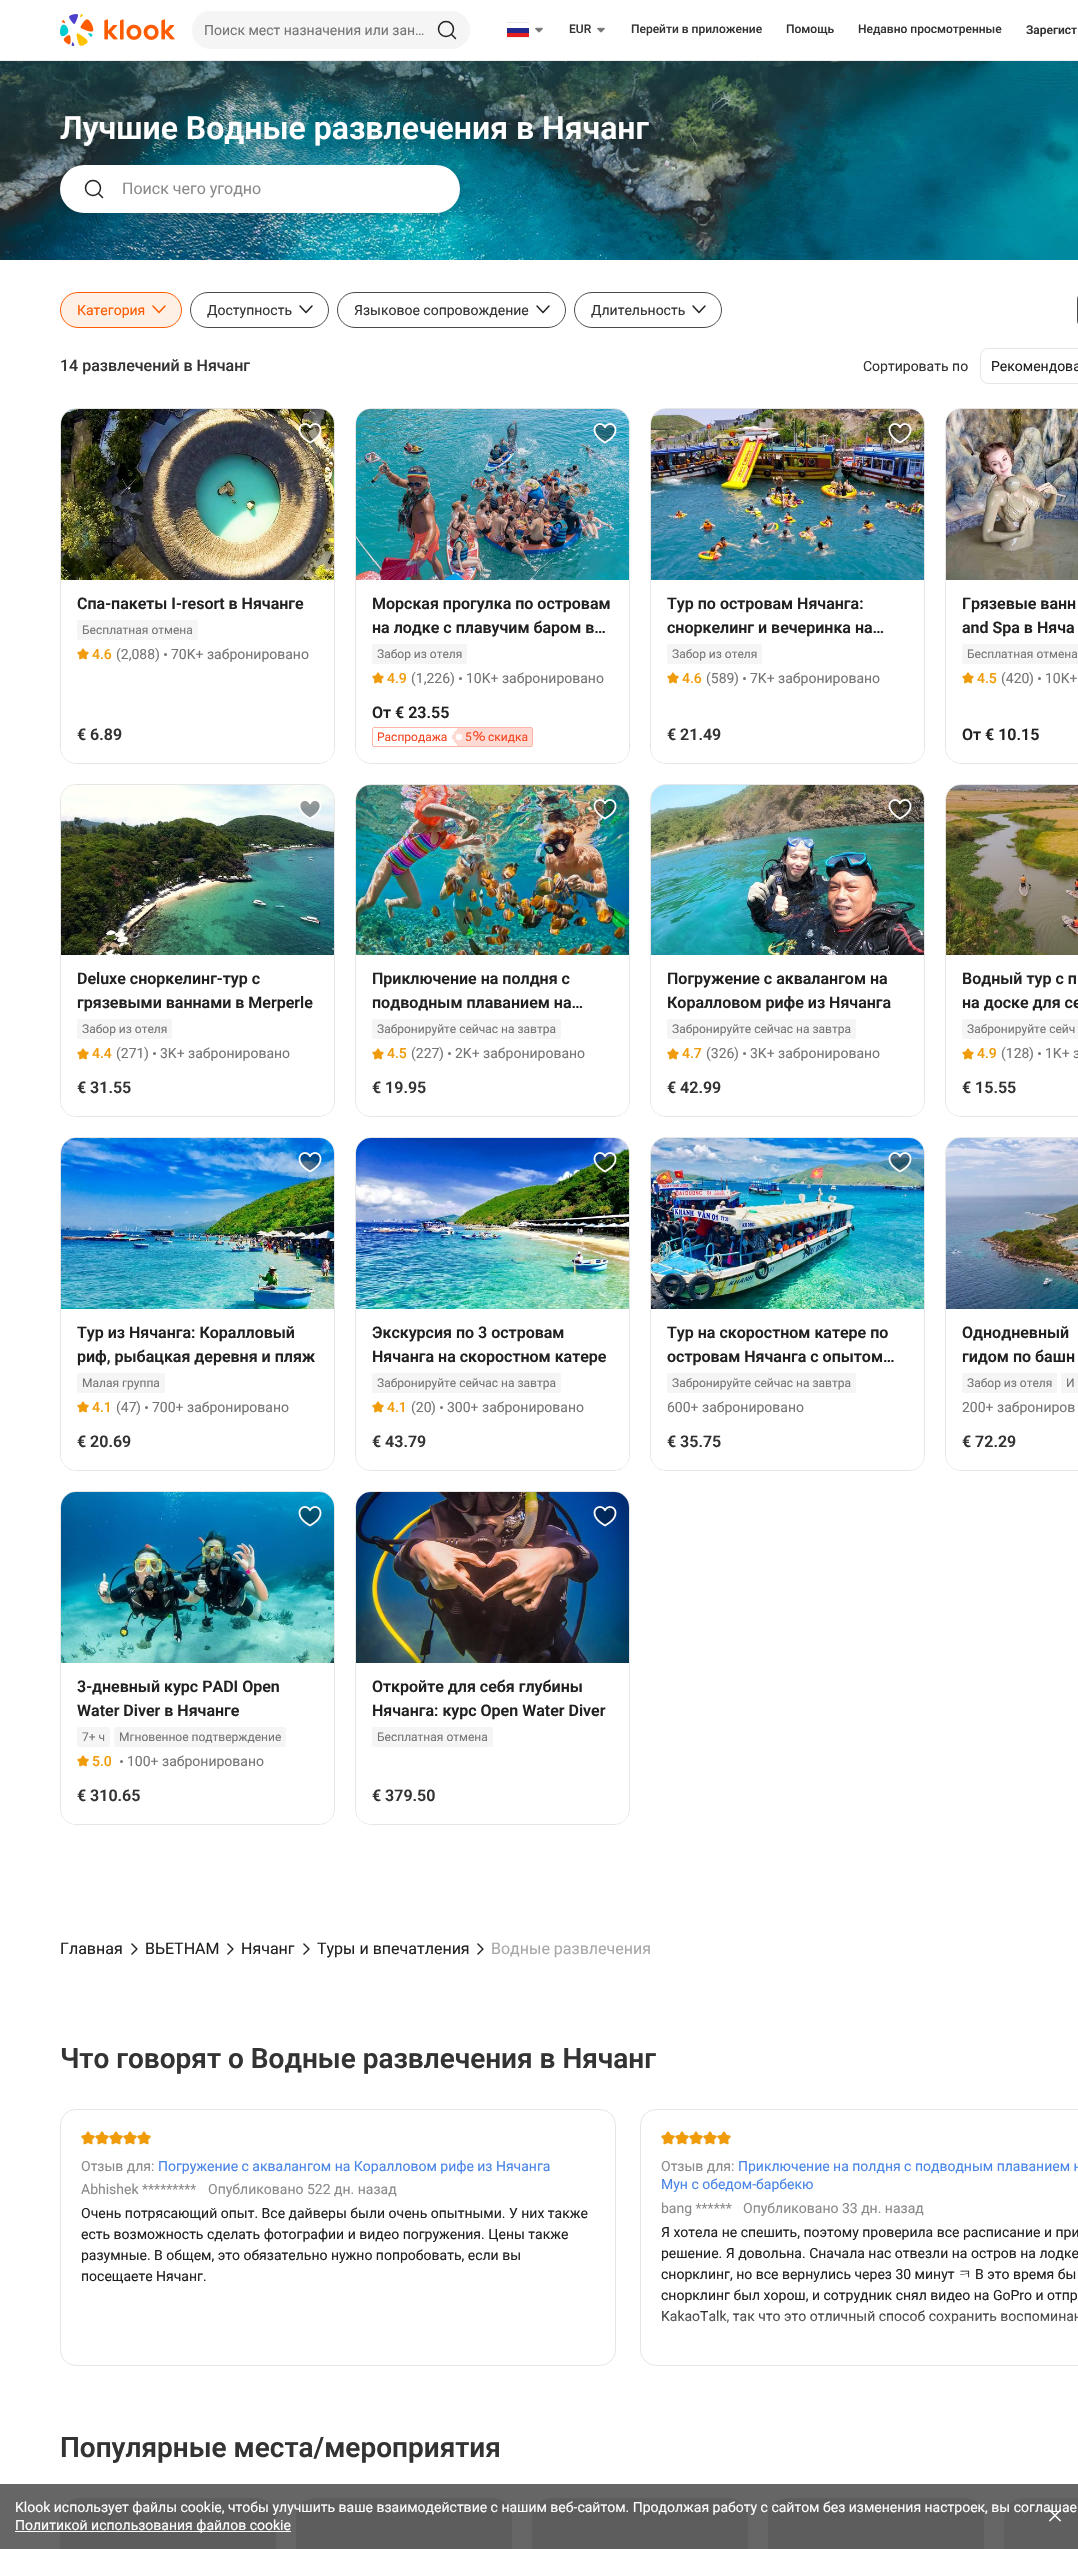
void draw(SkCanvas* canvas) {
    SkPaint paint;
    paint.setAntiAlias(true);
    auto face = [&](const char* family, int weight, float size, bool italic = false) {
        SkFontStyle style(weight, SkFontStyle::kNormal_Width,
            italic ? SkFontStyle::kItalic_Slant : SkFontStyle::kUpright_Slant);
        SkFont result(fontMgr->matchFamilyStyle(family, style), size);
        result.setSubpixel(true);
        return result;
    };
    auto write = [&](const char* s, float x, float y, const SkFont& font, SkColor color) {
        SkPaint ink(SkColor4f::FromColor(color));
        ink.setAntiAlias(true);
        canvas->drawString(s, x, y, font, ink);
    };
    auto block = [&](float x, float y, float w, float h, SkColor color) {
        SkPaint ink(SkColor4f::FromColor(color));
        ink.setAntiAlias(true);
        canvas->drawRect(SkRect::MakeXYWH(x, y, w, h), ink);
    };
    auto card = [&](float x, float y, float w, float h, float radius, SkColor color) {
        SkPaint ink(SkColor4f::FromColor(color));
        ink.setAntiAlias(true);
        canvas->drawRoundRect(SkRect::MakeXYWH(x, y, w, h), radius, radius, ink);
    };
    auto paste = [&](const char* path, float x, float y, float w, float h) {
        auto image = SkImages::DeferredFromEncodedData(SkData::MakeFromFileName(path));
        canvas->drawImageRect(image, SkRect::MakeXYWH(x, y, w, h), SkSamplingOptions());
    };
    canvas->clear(SK_ColorWHITE);
    block(0, 2484, 1078, 65, SkColorSetRGB(102, 102, 102));
    block(0, 60, 1078, 1, SkColorSetRGB(238, 238, 238));
    paste("pic1.png", 60, 14, 115, 32);
    paint.setColor(SkColorSetRGB(245, 245, 245));
    canvas->drawRoundRect(SkRect::MakeXYWH(191.5f, 10.5f, 279, 39), 19.5f, 19.5f, paint);
    paint.setStyle(SkPaint::kStroke_Style);
    paint.setStrokeWidth(1);
    paint.setColor(SK_ColorWHITE);
    canvas->drawRoundRect(SkRect::MakeXYWH(191.5f, 10.5f, 279, 39), 19.5f, 19.5f, paint);
    auto kFont1 = face("Roboto", 400, 14);
    write("Поиск мест назначения или зан…", 204, 35, kFont1, SkColorSetRGB(117, 117, 117));
    paint.setStrokeWidth(1.5f);
    paint.setColor(SkColorSetRGB(33, 33, 33));
    canvas->drawCircle(446, 29, 7.5f, paint);
    paint.setStrokeCap(SkPaint::kRound_Cap);
    canvas->drawPath(SkPathBuilder().moveTo(451.5f, 34.5f).lineTo(455.5f, 38.5f).detach(), paint);
    paste("pic2.png", 507, 22, 22, 16);
    paste("pic3.png", 535, 27, 8, 6);
    auto kFont2 = face("Roboto", 500, 12);
    write("EUR", 569, 33, kFont2, SkColorSetRGB(51, 51, 51));
    paste("pic3.png", 597, 27, 8, 6);
    write("Перейти в приложение", 631, 33, kFont2, SkColorSetRGB(51, 51, 51));
    write("Помощь", 786, 33, kFont2, SkColorSetRGB(51, 51, 51));
    write("Недавно просмотренные", 858, 33, kFont2, SkColorSetRGB(51, 51, 51));
    auto kFont3 = face("Roboto", 600, 12);
    write("Зарегист", 1026, 34, kFont3, SkColorSetRGB(51, 51, 51));
    paste("pic4.png", 0, 61, 1078, 199);
    auto kFont4 = face("Roboto", 600, 32);
    write("Лучшие Водные развлечения в Нячанг", 60, 139, kFont4, SK_ColorWHITE);
    paint.setStyle(SkPaint::kFill_Style);
    paint.setColor(SkColorSetARGB(36, 0, 0, 0));
    paint.setMaskFilter(SkMaskFilter::MakeBlur(kNormal_SkBlurStyle, 5));
    canvas->drawRoundRect(SkRect::MakeXYWH(60, 169, 400, 48), 24, 24, paint);
    paint.setMaskFilter(nullptr);
    card(60, 165, 400, 48, 24, SK_ColorWHITE);
    paint.setStyle(SkPaint::kStroke_Style);
    paint.setStrokeCap(SkPaint::kButt_Cap);
    paint.setColor(SkColorSetRGB(33, 33, 33));
    canvas->drawCircle(93, 188, 7.5f, paint);
    paint.setStrokeCap(SkPaint::kRound_Cap);
    canvas->drawPath(SkPathBuilder().moveTo(98.5f, 193.5f).lineTo(102.5f, 197.5f).detach(), paint);
    auto kFont5 = face("Roboto", 400, 16);
    write("Поиск чего угодно", 122, 194, kFont5, SkColorSetRGB(138, 138, 138));
    paint.setStyle(SkPaint::kFill_Style);
    paint.setColor(SkColorSetRGB(255, 240, 229));
    canvas->drawRoundRect(SkRect::MakeXYWH(60.5f, 292.5f, 121, 35), 17.5f, 17.5f, paint);
    paint.setStyle(SkPaint::kStroke_Style);
    paint.setStrokeWidth(1);
    paint.setStrokeCap(SkPaint::kButt_Cap);
    paint.setColor(SkColorSetRGB(255, 91, 0));
    canvas->drawRoundRect(SkRect::MakeXYWH(60.5f, 292.5f, 121, 35), 17.5f, 17.5f, paint);
    write("Категория", 77, 315, kFont1, SkColorSetRGB(255, 91, 0));
    paint.setStrokeWidth(1.5f);
    paint.setStrokeCap(SkPaint::kRound_Cap);
    paint.setStrokeJoin(SkPaint::kRound_Join);
    canvas->drawPath(SkPathBuilder().moveTo(153, 306).lineTo(159, 312.5f).lineTo(165, 306).detach(), paint);
    paint.setStrokeWidth(1);
    paint.setStrokeCap(SkPaint::kButt_Cap);
    paint.setStrokeJoin(SkPaint::kMiter_Join);
    paint.setColor(SkColorSetRGB(74, 74, 74));
    canvas->drawRoundRect(SkRect::MakeXYWH(190.5f, 292.5f, 138, 35), 17.5f, 17.5f, paint);
    write("Доступность", 207, 315, kFont1, SkColorSetRGB(51, 51, 51));
    paint.setStrokeWidth(1.5f);
    paint.setStrokeCap(SkPaint::kRound_Cap);
    paint.setStrokeJoin(SkPaint::kRound_Join);
    paint.setColor(SkColorSetRGB(33, 33, 33));
    canvas->drawPath(SkPathBuilder().moveTo(300, 306).lineTo(306, 312.5f).lineTo(312, 306).detach(), paint);
    paint.setStrokeWidth(1);
    paint.setStrokeCap(SkPaint::kButt_Cap);
    paint.setStrokeJoin(SkPaint::kMiter_Join);
    paint.setColor(SkColorSetRGB(74, 74, 74));
    canvas->drawRoundRect(SkRect::MakeXYWH(337.5f, 292.5f, 228, 35), 17.5f, 17.5f, paint);
    write("Языковое сопровождение", 354, 315, kFont1, SkColorSetRGB(51, 51, 51));
    paint.setStrokeWidth(1.5f);
    paint.setStrokeCap(SkPaint::kRound_Cap);
    paint.setStrokeJoin(SkPaint::kRound_Join);
    paint.setColor(SkColorSetRGB(33, 33, 33));
    canvas->drawPath(SkPathBuilder().moveTo(537, 306).lineTo(543, 312.5f).lineTo(549, 306).detach(), paint);
    paint.setStrokeWidth(1);
    paint.setStrokeCap(SkPaint::kButt_Cap);
    paint.setStrokeJoin(SkPaint::kMiter_Join);
    paint.setColor(SkColorSetRGB(74, 74, 74));
    canvas->drawRoundRect(SkRect::MakeXYWH(574.5f, 292.5f, 147, 35), 17.5f, 17.5f, paint);
    write("Длительность", 591, 315, kFont1, SkColorSetRGB(51, 51, 51));
    paint.setStrokeWidth(1.5f);
    paint.setStrokeCap(SkPaint::kRound_Cap);
    paint.setStrokeJoin(SkPaint::kRound_Join);
    paint.setColor(SkColorSetRGB(33, 33, 33));
    canvas->drawPath(SkPathBuilder().moveTo(693, 306).lineTo(699, 312.5f).lineTo(705, 306).detach(), paint);
    paint.setStrokeWidth(2);
    paint.setStrokeCap(SkPaint::kButt_Cap);
    paint.setStrokeJoin(SkPaint::kMiter_Join);
    paint.setColor(SkColorSetRGB(74, 74, 74));
    canvas->drawRoundRect(SkRect::MakeXYWH(1078, 293, 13, 34), 11, 11, paint);
    auto kFont6 = face("Roboto", 500, 16);
    write("14 развлечений в Нячанг", 60, 371, kFont6, SkColorSetRGB(51, 51, 51));
    write("Сортировать по", 863, 371, kFont1, SkColorSetRGB(51, 51, 51));
    paint.setStrokeWidth(1);
    paint.setColor(SkColorSetRGB(230, 230, 230));
    canvas->drawRoundRect(SkRect::MakeXYWH(980.5f, 348.5f, 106, 35), 7.5f, 7.5f, paint);
    write("Рекомендова", 991, 371, kFont1, SkColorSetRGB(33, 33, 33));
    canvas->drawRoundRect(SkRect::MakeXYWH(60.5f, 408.5f, 274, 355), 15.5f, 15.5f, paint);
    paste("pic5.png", 61, 409, 273, 171);
    paste("pic6.png", 298, 423, 24, 21);
    paint.setStyle(SkPaint::kFill_Style);
    paint.setColor(SK_ColorWHITE);
    canvas->drawPath(SkPathBuilder().moveTo(61, 580).lineTo(334, 580).lineTo(334, 748).cubicTo(334, 756.5f, 327.5f, 763, 319, 763).lineTo(76, 763).cubicTo(67.5f, 763, 61, 756.5f, 61, 748).close().detach(), paint);
    auto kFont7 = face("Roboto", 600, 16);
    write("Спа-пакеты I-resort в Нячанге", 77, 609, kFont7, SkColorSetRGB(33, 33, 33));
    card(77, 620, 121, 20, 2, SkColorSetRGB(245, 245, 245));
    auto kFont8 = face("Roboto", 400, 12);
    write("Бесплатная отмена", 82, 634, kFont8, SkColorSetRGB(117, 117, 117));
    paste("pic7.png", 77, 648, 12, 12);
    auto kFont9 = face("Roboto", 500, 14);
    write("4.6", 92, 659, kFont9, SkColorSetRGB(240, 155, 10));
    write("(2,088", 116, 659, kFont1, SkColorSetRGB(117, 117, 117));
    write(")", 155, 659, kFont1, SkColorSetRGB(117, 117, 117));
    paint.setColor(SkColorSetRGB(117, 117, 117));
    canvas->drawCircle(165.5f, 654.5f, 1.5f, paint);
    write("70K+ забронировано", 171, 659, kFont1, SkColorSetRGB(117, 117, 117));
    write("€ 6.89", 77, 740, kFont7, SkColorSetRGB(51, 51, 51));
    paint.setStyle(SkPaint::kStroke_Style);
    paint.setColor(SkColorSetRGB(230, 230, 230));
    canvas->drawRoundRect(SkRect::MakeXYWH(355.5f, 408.5f, 274, 355), 15.5f, 15.5f, paint);
    paste("pic8.png", 356, 409, 273, 171);
    paste("pic9.png", 593, 423, 24, 21);
    paint.setStyle(SkPaint::kFill_Style);
    paint.setColor(SK_ColorWHITE);
    canvas->drawPath(SkPathBuilder().moveTo(356, 580).lineTo(629, 580).lineTo(629, 748).cubicTo(629, 756.5f, 622.5f, 763, 614, 763).lineTo(371, 763).cubicTo(362.5f, 763, 356, 756.5f, 356, 748).close().detach(), paint);
    write("Морская прогулка по островам", 372, 609, kFont7, SkColorSetRGB(33, 33, 33));
    write("на лодке с плавучим баром в…", 372, 633, kFont7, SkColorSetRGB(33, 33, 33));
    card(372, 644, 95, 20, 2, SkColorSetRGB(245, 245, 245));
    write("Забор из отеля", 377, 658, kFont8, SkColorSetRGB(117, 117, 117));
    paste("pic7.png", 372, 672, 12, 12);
    write("4.9", 387, 683, kFont9, SkColorSetRGB(240, 155, 10));
    write("(1,226", 411, 683, kFont1, SkColorSetRGB(117, 117, 117));
    write(")", 450, 683, kFont1, SkColorSetRGB(117, 117, 117));
    paint.setColor(SkColorSetRGB(117, 117, 117));
    canvas->drawCircle(460.5f, 678.5f, 1.5f, paint);
    write("10K+ забронировано", 466, 683, kFont1, SkColorSetRGB(117, 117, 117));
    write("От € 23.55", 372, 718, kFont7, SkColorSetRGB(33, 33, 33));
    paint.setStyle(SkPaint::kStroke_Style);
    paint.setColor(SkColorSetRGB(251, 181, 167));
    canvas->drawRoundRect(SkRect::MakeXYWH(372.5f, 727.5f, 160, 19), 1.5f, 1.5f, paint);
    write("Распродажа", 377, 741, kFont8, SkColorSetRGB(244, 70, 34));
    block(452, 728, 80, 18, SkColorSetARGB(51, 244, 70, 34));
    paint.setStyle(SkPaint::kFill_Style);
    {
        const SkColor colors[] = {SK_ColorWHITE, SkColorSetARGB(0, 255, 255, 255)};
        const float stops[] = {0.1f, 0.1f};
        const SkPoint ends[] = {{458, 760}, {522, 714}};
        paint.setShader(SkGradientShader::MakeLinear(ends, colors, stops, 2, SkTileMode::kClamp));
        paint.setAlpha(255);
    }
    canvas->drawRect(SkRect::MakeXYWH(452, 739, 5, 7), paint);
    {
        const SkColor colors[] = {SK_ColorWHITE, SkColorSetARGB(0, 255, 255, 255)};
        const float stops[] = {0.1f, 0.1f};
        const SkPoint ends[] = {{458, 714}, {522, 760}};
        paint.setShader(SkGradientShader::MakeLinear(ends, colors, stops, 2, SkTileMode::kClamp));
        paint.setAlpha(255);
    }
    canvas->drawRect(SkRect::MakeXYWH(452, 728, 5, 7), paint);
    {
        const SkColor colors[] = {SK_ColorWHITE, SkColorSetARGB(0, 255, 255, 255)};
        const float stops[] = {0.04f, 0.04f};
        paint.setShader(SkGradientShader::MakeRadial({459, 737}, 74, colors, stops, 2, SkTileMode::kClamp));
        paint.setAlpha(255);
    }
    canvas->drawRect(SkRect::MakeXYWH(456, 734, 6, 6), paint);
    write("5", 465, 741, kFont8, SkColorSetRGB(244, 70, 34));
    paste("pic10.png", 473, 731, 12, 10);
    write("скидка", 488, 741, kFont8, SkColorSetRGB(244, 70, 34));
    paint.setStyle(SkPaint::kStroke_Style);
    paint.setShader(nullptr);
    paint.setColor(SkColorSetRGB(230, 230, 230));
    canvas->drawRoundRect(SkRect::MakeXYWH(650.5f, 408.5f, 274, 355), 15.5f, 15.5f, paint);
    paste("pic11.png", 651, 409, 273, 171);
    paste("pic12.png", 888, 423, 24, 21);
    paint.setStyle(SkPaint::kFill_Style);
    paint.setColor(SK_ColorWHITE);
    canvas->drawPath(SkPathBuilder().moveTo(651, 580).lineTo(924, 580).lineTo(924, 748).cubicTo(924, 756.5f, 917.5f, 763, 909, 763).lineTo(666, 763).cubicTo(657.5f, 763, 651, 756.5f, 651, 748).close().detach(), paint);
    write("Тур по островам Нячанга:", 667, 609, kFont7, SkColorSetRGB(33, 33, 33));
    write("сноркелинг и вечеринка на…", 667, 633, kFont7, SkColorSetRGB(33, 33, 33));
    card(667, 644, 95, 20, 2, SkColorSetRGB(245, 245, 245));
    write("Забор из отеля", 672, 658, kFont8, SkColorSetRGB(117, 117, 117));
    paste("pic7.png", 667, 672, 12, 12);
    write("4.6", 682, 683, kFont9, SkColorSetRGB(240, 155, 10));
    write("(589", 706, 683, kFont1, SkColorSetRGB(117, 117, 117));
    write(")", 734, 683, kFont1, SkColorSetRGB(117, 117, 117));
    paint.setColor(SkColorSetRGB(117, 117, 117));
    canvas->drawCircle(744.5f, 678.5f, 1.5f, paint);
    write("7K+ забронировано", 750, 683, kFont1, SkColorSetRGB(117, 117, 117));
    write("€ 21.49", 667, 740, kFont7, SkColorSetRGB(51, 51, 51));
    paint.setStyle(SkPaint::kStroke_Style);
    paint.setColor(SkColorSetRGB(230, 230, 230));
    canvas->drawRoundRect(SkRect::MakeXYWH(945.5f, 408.5f, 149, 355), 15.5f, 15.5f, paint);
    paste("pic13.png", 946, 409, 132, 171);
    paint.setStyle(SkPaint::kFill_Style);
    paint.setColor(SK_ColorWHITE);
    canvas->drawPath(SkPathBuilder().moveTo(946, 580).lineTo(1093, 580).lineTo(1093, 748).cubicTo(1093, 756.5f, 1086.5f, 763, 1078, 763).lineTo(961, 763).cubicTo(952.5f, 763, 946, 756.5f, 946, 748).close().detach(), paint);
    write("Грязевые ванн", 962, 609, kFont7, SkColorSetRGB(33, 33, 33));
    write("and Spa в Няча", 962, 633, kFont7, SkColorSetRGB(33, 33, 33));
    card(962, 644, 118, 20, 2, SkColorSetRGB(245, 245, 245));
    write("Бесплатная отмена", 967, 658, kFont8, SkColorSetRGB(117, 117, 117));
    paste("pic7.png", 962, 672, 12, 12);
    write("4.5", 977, 683, kFont9, SkColorSetRGB(240, 155, 10));
    write("(420", 1001, 683, kFont1, SkColorSetRGB(117, 117, 117));
    write(")", 1029, 683, kFont1, SkColorSetRGB(117, 117, 117));
    paint.setColor(SkColorSetRGB(117, 117, 117));
    canvas->drawCircle(1039.5f, 678.5f, 1.5f, paint);
    write("10K+", 1045, 683, kFont1, SkColorSetRGB(117, 117, 117));
    write("От € 10.15", 962, 740, kFont7, SkColorSetRGB(33, 33, 33));
    paint.setStyle(SkPaint::kStroke_Style);
    paint.setColor(SkColorSetRGB(230, 230, 230));
    canvas->drawRoundRect(SkRect::MakeXYWH(60.5f, 784.5f, 274, 332), 15.5f, 15.5f, paint);
    paste("pic14.png", 61, 785, 273, 170);
    paste("pic15.png", 298, 799, 24, 21);
    paint.setStyle(SkPaint::kFill_Style);
    paint.setColor(SK_ColorWHITE);
    canvas->drawPath(SkPathBuilder().moveTo(61, 955).lineTo(334, 955).lineTo(334, 1101).cubicTo(334, 1109.5f, 327.5f, 1116, 319, 1116).lineTo(76, 1116).cubicTo(67.5f, 1116, 61, 1109.5f, 61, 1101).close().detach(), paint);
    write("Deluxe сноркелинг-тур с", 77, 984, kFont7, SkColorSetRGB(33, 33, 33));
    write("грязевыми ваннами в Merperle", 77, 1008, kFont7, SkColorSetRGB(33, 33, 33));
    card(77, 1019, 95, 20, 2, SkColorSetRGB(245, 245, 245));
    write("Забор из отеля", 82, 1033, kFont8, SkColorSetRGB(117, 117, 117));
    paste("pic7.png", 77, 1048, 12, 12);
    write("4.4", 92, 1058, kFont9, SkColorSetRGB(240, 155, 10));
    write("(271", 116, 1058, kFont1, SkColorSetRGB(117, 117, 117));
    write(")", 144, 1058, kFont1, SkColorSetRGB(117, 117, 117));
    paint.setColor(SkColorSetRGB(117, 117, 117));
    canvas->drawCircle(154.5f, 1053.5f, 1.5f, paint);
    write("3K+ забронировано", 160, 1058, kFont1, SkColorSetRGB(117, 117, 117));
    write("€ 31.55", 77, 1093, kFont7, SkColorSetRGB(51, 51, 51));
    paint.setStyle(SkPaint::kStroke_Style);
    paint.setColor(SkColorSetRGB(230, 230, 230));
    canvas->drawRoundRect(SkRect::MakeXYWH(355.5f, 784.5f, 274, 332), 15.5f, 15.5f, paint);
    paste("pic16.png", 356, 785, 273, 170);
    paste("pic17.png", 593, 799, 24, 21);
    paint.setStyle(SkPaint::kFill_Style);
    paint.setColor(SK_ColorWHITE);
    canvas->drawPath(SkPathBuilder().moveTo(356, 955).lineTo(629, 955).lineTo(629, 1101).cubicTo(629, 1109.5f, 622.5f, 1116, 614, 1116).lineTo(371, 1116).cubicTo(362.5f, 1116, 356, 1109.5f, 356, 1101).close().detach(), paint);
    write("Приключение на полдня с", 372, 984, kFont7, SkColorSetRGB(33, 33, 33));
    write("подводным плаванием на…", 372, 1008, kFont7, SkColorSetRGB(33, 33, 33));
    card(372, 1019, 189, 20, 2, SkColorSetRGB(245, 245, 245));
    write("Забронируйте сейчас на завтра", 377, 1033, kFont8, SkColorSetRGB(117, 117, 117));
    paste("pic7.png", 372, 1048, 12, 12);
    write("4.5", 387, 1058, kFont9, SkColorSetRGB(240, 155, 10));
    write("(227", 411, 1058, kFont1, SkColorSetRGB(117, 117, 117));
    write(")", 439, 1058, kFont1, SkColorSetRGB(117, 117, 117));
    paint.setColor(SkColorSetRGB(117, 117, 117));
    canvas->drawCircle(449.5f, 1053.5f, 1.5f, paint);
    write("2K+ забронировано", 455, 1058, kFont1, SkColorSetRGB(117, 117, 117));
    write("€ 19.95", 372, 1093, kFont7, SkColorSetRGB(51, 51, 51));
    paint.setStyle(SkPaint::kStroke_Style);
    paint.setColor(SkColorSetRGB(230, 230, 230));
    canvas->drawRoundRect(SkRect::MakeXYWH(650.5f, 784.5f, 274, 332), 15.5f, 15.5f, paint);
    paste("pic18.png", 651, 785, 273, 170);
    paste("pic19.png", 888, 799, 24, 21);
    paint.setStyle(SkPaint::kFill_Style);
    paint.setColor(SK_ColorWHITE);
    canvas->drawPath(SkPathBuilder().moveTo(651, 955).lineTo(924, 955).lineTo(924, 1101).cubicTo(924, 1109.5f, 917.5f, 1116, 909, 1116).lineTo(666, 1116).cubicTo(657.5f, 1116, 651, 1109.5f, 651, 1101).close().detach(), paint);
    write("Погружение с аквалангом на", 667, 984, kFont7, SkColorSetRGB(33, 33, 33));
    write("Коралловом рифе из Нячанга", 667, 1008, kFont7, SkColorSetRGB(33, 33, 33));
    card(667, 1019, 189, 20, 2, SkColorSetRGB(245, 245, 245));
    write("Забронируйте сейчас на завтра", 672, 1033, kFont8, SkColorSetRGB(117, 117, 117));
    paste("pic7.png", 667, 1048, 12, 12);
    write("4.7", 682, 1058, kFont9, SkColorSetRGB(240, 155, 10));
    write("(326", 706, 1058, kFont1, SkColorSetRGB(117, 117, 117));
    write(")", 734, 1058, kFont1, SkColorSetRGB(117, 117, 117));
    paint.setColor(SkColorSetRGB(117, 117, 117));
    canvas->drawCircle(744.5f, 1053.5f, 1.5f, paint);
    write("3K+ забронировано", 750, 1058, kFont1, SkColorSetRGB(117, 117, 117));
    write("€ 42.99", 667, 1093, kFont7, SkColorSetRGB(51, 51, 51));
    paint.setStyle(SkPaint::kStroke_Style);
    paint.setColor(SkColorSetRGB(230, 230, 230));
    canvas->drawRoundRect(SkRect::MakeXYWH(945.5f, 784.5f, 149, 332), 15.5f, 15.5f, paint);
    paste("pic20.png", 946, 785, 132, 170);
    paint.setStyle(SkPaint::kFill_Style);
    paint.setColor(SK_ColorWHITE);
    canvas->drawPath(SkPathBuilder().moveTo(946, 955).lineTo(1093, 955).lineTo(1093, 1101).cubicTo(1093, 1109.5f, 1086.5f, 1116, 1078, 1116).lineTo(961, 1116).cubicTo(952.5f, 1116, 946, 1109.5f, 946, 1101).close().detach(), paint);
    write("Водный тур с п", 962, 984, kFont7, SkColorSetRGB(33, 33, 33));
    write("на доске для се", 962, 1008, kFont7, SkColorSetRGB(33, 33, 33));
    card(962, 1019, 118, 20, 2, SkColorSetRGB(245, 245, 245));
    write("Забронируйте сейч", 967, 1033, kFont8, SkColorSetRGB(117, 117, 117));
    paste("pic7.png", 962, 1048, 12, 12);
    write("4.9", 977, 1058, kFont9, SkColorSetRGB(240, 155, 10));
    write("(128", 1001, 1058, kFont1, SkColorSetRGB(117, 117, 117));
    write(")", 1029, 1058, kFont1, SkColorSetRGB(117, 117, 117));
    paint.setColor(SkColorSetRGB(117, 117, 117));
    canvas->drawCircle(1039.5f, 1053.5f, 1.5f, paint);
    write("1K+ з", 1045, 1058, kFont1, SkColorSetRGB(117, 117, 117));
    write("€ 15.55", 962, 1093, kFont7, SkColorSetRGB(51, 51, 51));
    paint.setStyle(SkPaint::kStroke_Style);
    paint.setColor(SkColorSetRGB(230, 230, 230));
    canvas->drawRoundRect(SkRect::MakeXYWH(60.5f, 1137.5f, 274, 333), 15.5f, 15.5f, paint);
    paste("pic21.png", 61, 1138, 273, 171);
    paste("pic22.png", 298, 1152, 24, 21);
    paint.setStyle(SkPaint::kFill_Style);
    paint.setColor(SK_ColorWHITE);
    canvas->drawPath(SkPathBuilder().moveTo(61, 1309).lineTo(334, 1309).lineTo(334, 1455).cubicTo(334, 1463.5f, 327.5f, 1470, 319, 1470).lineTo(76, 1470).cubicTo(67.5f, 1470, 61, 1463.5f, 61, 1455).close().detach(), paint);
    write("Тур из Нячанга: Коралловый", 77, 1338, kFont7, SkColorSetRGB(33, 33, 33));
    write("риф, рыбацкая деревня и пляж", 77, 1362, kFont7, SkColorSetRGB(33, 33, 33));
    card(77, 1373, 88, 20, 2, SkColorSetRGB(245, 245, 245));
    write("Малая группа", 82, 1387, kFont8, SkColorSetRGB(117, 117, 117));
    paste("pic7.png", 77, 1401, 12, 12);
    write("4.1", 92, 1412, kFont9, SkColorSetRGB(240, 155, 10));
    write("(47", 116, 1412, kFont1, SkColorSetRGB(117, 117, 117));
    write(")", 136, 1412, kFont1, SkColorSetRGB(117, 117, 117));
    paint.setColor(SkColorSetRGB(117, 117, 117));
    canvas->drawCircle(146.5f, 1407.5f, 1.5f, paint);
    write("700+ забронировано", 152, 1412, kFont1, SkColorSetRGB(117, 117, 117));
    write("€ 20.69", 77, 1447, kFont7, SkColorSetRGB(51, 51, 51));
    paint.setStyle(SkPaint::kStroke_Style);
    paint.setColor(SkColorSetRGB(230, 230, 230));
    canvas->drawRoundRect(SkRect::MakeXYWH(355.5f, 1137.5f, 274, 333), 15.5f, 15.5f, paint);
    paste("pic23.png", 356, 1138, 273, 171);
    paste("pic24.png", 593, 1152, 24, 21);
    paint.setStyle(SkPaint::kFill_Style);
    paint.setColor(SK_ColorWHITE);
    canvas->drawPath(SkPathBuilder().moveTo(356, 1309).lineTo(629, 1309).lineTo(629, 1455).cubicTo(629, 1463.5f, 622.5f, 1470, 614, 1470).lineTo(371, 1470).cubicTo(362.5f, 1470, 356, 1463.5f, 356, 1455).close().detach(), paint);
    write("Экскурсия по 3 островам", 372, 1338, kFont7, SkColorSetRGB(33, 33, 33));
    write("Нячанга на скоростном катере", 372, 1362, kFont7, SkColorSetRGB(33, 33, 33));
    card(372, 1373, 189, 20, 2, SkColorSetRGB(245, 245, 245));
    write("Забронируйте сейчас на завтра", 377, 1387, kFont8, SkColorSetRGB(117, 117, 117));
    paste("pic7.png", 372, 1401, 12, 12);
    write("4.1", 387, 1412, kFont9, SkColorSetRGB(240, 155, 10));
    write("(20", 411, 1412, kFont1, SkColorSetRGB(117, 117, 117));
    write(")", 431, 1412, kFont1, SkColorSetRGB(117, 117, 117));
    paint.setColor(SkColorSetRGB(117, 117, 117));
    canvas->drawCircle(441.5f, 1407.5f, 1.5f, paint);
    write("300+ забронировано", 447, 1412, kFont1, SkColorSetRGB(117, 117, 117));
    write("€ 43.79", 372, 1447, kFont7, SkColorSetRGB(51, 51, 51));
    paint.setStyle(SkPaint::kStroke_Style);
    paint.setColor(SkColorSetRGB(230, 230, 230));
    canvas->drawRoundRect(SkRect::MakeXYWH(650.5f, 1137.5f, 274, 333), 15.5f, 15.5f, paint);
    paste("pic25.png", 651, 1138, 273, 171);
    paste("pic26.png", 888, 1152, 24, 21);
    paint.setStyle(SkPaint::kFill_Style);
    paint.setColor(SK_ColorWHITE);
    canvas->drawPath(SkPathBuilder().moveTo(651, 1309).lineTo(924, 1309).lineTo(924, 1455).cubicTo(924, 1463.5f, 917.5f, 1470, 909, 1470).lineTo(666, 1470).cubicTo(657.5f, 1470, 651, 1463.5f, 651, 1455).close().detach(), paint);
    write("Тур на скоростном катере по", 667, 1338, kFont7, SkColorSetRGB(33, 33, 33));
    write("островам Нячанга с опытом…", 667, 1362, kFont7, SkColorSetRGB(33, 33, 33));
    card(667, 1373, 189, 20, 2, SkColorSetRGB(245, 245, 245));
    write("Забронируйте сейчас на завтра", 672, 1387, kFont8, SkColorSetRGB(117, 117, 117));
    write("600+ забронировано", 667, 1412, kFont1, SkColorSetRGB(117, 117, 117));
    write("€ 35.75", 667, 1447, kFont7, SkColorSetRGB(51, 51, 51));
    paint.setStyle(SkPaint::kStroke_Style);
    paint.setColor(SkColorSetRGB(230, 230, 230));
    canvas->drawRoundRect(SkRect::MakeXYWH(945.5f, 1137.5f, 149, 333), 15.5f, 15.5f, paint);
    paste("pic27.png", 946, 1138, 132, 171);
    paint.setStyle(SkPaint::kFill_Style);
    paint.setColor(SK_ColorWHITE);
    canvas->drawPath(SkPathBuilder().moveTo(946, 1309).lineTo(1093, 1309).lineTo(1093, 1455).cubicTo(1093, 1463.5f, 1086.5f, 1470, 1078, 1470).lineTo(961, 1470).cubicTo(952.5f, 1470, 946, 1463.5f, 946, 1455).close().detach(), paint);
    write("Однодневный", 962, 1338, kFont7, SkColorSetRGB(33, 33, 33));
    write("гидом по башн", 962, 1362, kFont7, SkColorSetRGB(33, 33, 33));
    card(962, 1373, 95, 20, 2, SkColorSetRGB(245, 245, 245));
    write("Забор из отеля", 967, 1387, kFont8, SkColorSetRGB(117, 117, 117));
    card(1061, 1373, 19, 20, 2, SkColorSetRGB(245, 245, 245));
    write("И", 1066, 1387, kFont8, SkColorSetRGB(117, 117, 117));
    write("200+ заброниров", 962, 1412, kFont1, SkColorSetRGB(117, 117, 117));
    write("€ 72.29", 962, 1447, kFont7, SkColorSetRGB(51, 51, 51));
    paint.setStyle(SkPaint::kStroke_Style);
    paint.setColor(SkColorSetRGB(230, 230, 230));
    canvas->drawRoundRect(SkRect::MakeXYWH(60.5f, 1491.5f, 274, 333), 15.5f, 15.5f, paint);
    paste("pic28.png", 61, 1492, 273, 171);
    paste("pic29.png", 298, 1506, 24, 21);
    paint.setStyle(SkPaint::kFill_Style);
    paint.setColor(SK_ColorWHITE);
    canvas->drawPath(SkPathBuilder().moveTo(61, 1663).lineTo(334, 1663).lineTo(334, 1809).cubicTo(334, 1817.5f, 327.5f, 1824, 319, 1824).lineTo(76, 1824).cubicTo(67.5f, 1824, 61, 1817.5f, 61, 1809).close().detach(), paint);
    write("3-дневный курс PADI Open", 77, 1692, kFont7, SkColorSetRGB(33, 33, 33));
    write("Water Diver в Нячанге", 77, 1716, kFont7, SkColorSetRGB(33, 33, 33));
    card(77, 1727, 33, 20, 2, SkColorSetRGB(245, 245, 245));
    write("7+ ч", 82, 1741, kFont8, SkColorSetRGB(117, 117, 117));
    card(114, 1727, 172, 20, 2, SkColorSetRGB(245, 245, 245));
    write("Мгновенное подтверждение", 119, 1741, kFont8, SkColorSetRGB(117, 117, 117));
    paste("pic7.png", 77, 1755, 12, 12);
    write("5.0", 92, 1766, kFont9, SkColorSetRGB(240, 155, 10));
    paint.setColor(SkColorSetRGB(117, 117, 117));
    canvas->drawCircle(121.5f, 1761.5f, 1.5f, paint);
    write("100+ забронировано", 127, 1766, kFont1, SkColorSetRGB(117, 117, 117));
    write("€ 310.65", 77, 1801, kFont7, SkColorSetRGB(51, 51, 51));
    paint.setStyle(SkPaint::kStroke_Style);
    paint.setColor(SkColorSetRGB(230, 230, 230));
    canvas->drawRoundRect(SkRect::MakeXYWH(355.5f, 1491.5f, 274, 333), 15.5f, 15.5f, paint);
    paste("pic30.png", 356, 1492, 273, 171);
    paste("pic31.png", 593, 1506, 24, 21);
    paint.setStyle(SkPaint::kFill_Style);
    paint.setColor(SK_ColorWHITE);
    canvas->drawPath(SkPathBuilder().moveTo(356, 1663).lineTo(629, 1663).lineTo(629, 1809).cubicTo(629, 1817.5f, 622.5f, 1824, 614, 1824).lineTo(371, 1824).cubicTo(362.5f, 1824, 356, 1817.5f, 356, 1809).close().detach(), paint);
    write("Откройте для себя глубины", 372, 1692, kFont7, SkColorSetRGB(33, 33, 33));
    write("Нячанга: курс Open Water Diver", 372, 1716, kFont7, SkColorSetRGB(33, 33, 33));
    card(372, 1727, 121, 20, 2, SkColorSetRGB(245, 245, 245));
    write("Бесплатная отмена", 377, 1741, kFont8, SkColorSetRGB(117, 117, 117));
    write("€ 379.50", 372, 1801, kFont7, SkColorSetRGB(51, 51, 51));
    write("Главная", 60, 1954, kFont5, SkColorSetRGB(33, 33, 33));
    paste("pic32.png", 131, 1943, 7, 12);
    write("ВЬЕТНАМ", 145, 1954, kFont5, SkColorSetRGB(33, 33, 33));
    paste("pic32.png", 227, 1943, 7, 12);
    write("Нячанг", 241, 1954, kFont5, SkColorSetRGB(33, 33, 33));
    paste("pic32.png", 303, 1943, 7, 12);
    write("Туры и впечатления", 317, 1954, kFont5, SkColorSetRGB(33, 33, 33));
    paste("pic32.png", 477, 1943, 7, 12);
    write("Водные развлечения", 491, 1954, kFont5, SkColorSetRGB(168, 168, 168));
    auto kFont10 = face("Roboto", 600, 28);
    write("Что говорят о Водные развлечения в Нячанг", 60, 2068, kFont10, SkColorSetRGB(51, 51, 51));
    paint.setStyle(SkPaint::kStroke_Style);
    paint.setColor(SkColorSetRGB(230, 230, 230));
    canvas->drawRoundRect(SkRect::MakeXYWH(60.5f, 2109.5f, 555, 256), 15.5f, 15.5f, paint);
    paste("pic33.png", 81, 2131, 14, 14);
    paste("pic33.png", 95, 2131, 14, 14);
    paste("pic33.png", 109, 2131, 14, 14);
    paste("pic33.png", 123, 2131, 14, 14);
    paste("pic33.png", 137, 2131, 14, 14);
    paste("pic34.png", 81, 2131, 14, 14);
    paste("pic34.png", 95, 2131, 14, 14);
    paste("pic34.png", 109, 2131, 14, 14);
    paste("pic34.png", 123, 2131, 14, 14);
    paste("pic34.png", 137, 2131, 14, 14);
    write("Отзыв для:", 81, 2171, kFont1, SkColorSetRGB(138, 138, 138));
    write("Погружение с аквалангом на Коралловом рифе из Нячанга", 158, 2171, kFont1, SkColorSetRGB(73, 133, 230));
    write("Abhishek *********", 81, 2194, kFont1, SkColorSetRGB(138, 138, 138));
    write("Опубликовано 522 дн. назад", 208, 2194, kFont1, SkColorSetRGB(138, 138, 138));
    write("Очень потрясающий опыт. Все дайверы были очень опытными. У них также", 81, 2218, kFont1, SkColorSetRGB(33, 33, 33));
    write("есть возможность сделать фотографии и видео погружения. Цены также", 81, 2239, kFont1, SkColorSetRGB(33, 33, 33));
    write("разумные. В общем, это обязательно нужно попробовать, если вы", 81, 2260, kFont1, SkColorSetRGB(33, 33, 33));
    write("посещаете Нячанг.", 81, 2281, kFont1, SkColorSetRGB(33, 33, 33));
    canvas->drawRoundRect(SkRect::MakeXYWH(640.5f, 2109.5f, 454, 256), 15.5f, 15.5f, paint);
    paste("pic33.png", 661, 2131, 14, 14);
    paste("pic33.png", 675, 2131, 14, 14);
    paste("pic33.png", 689, 2131, 14, 14);
    paste("pic33.png", 703, 2131, 14, 14);
    paste("pic33.png", 717, 2131, 14, 14);
    paste("pic34.png", 661, 2131, 14, 14);
    paste("pic34.png", 675, 2131, 14, 14);
    paste("pic34.png", 689, 2131, 14, 14);
    paste("pic34.png", 703, 2131, 14, 14);
    paste("pic34.png", 717, 2131, 14, 14);
    write("Отзыв для:", 661, 2171, kFont1, SkColorSetRGB(138, 138, 138));
    write("Приключение на полдня с подводным плаванием н", 738, 2171, kFont1, SkColorSetRGB(73, 133, 230));
    write("Мун с обедом-барбекю", 661, 2189, kFont1, SkColorSetRGB(73, 133, 230));
    write("bang ******", 661, 2213, kFont1, SkColorSetRGB(138, 138, 138));
    write("Опубликовано 33 дн. назад", 743, 2213, kFont1, SkColorSetRGB(138, 138, 138));
    write("Я хотела не спешить, поэтому проверила все расписание и при", 661, 2237, kFont1, SkColorSetRGB(33, 33, 33));
    write("решение. Я довольна. Сначала нас отвезли на остров на лодке", 661, 2258, kFont1, SkColorSetRGB(33, 33, 33));
    write("снорклинг, но все вернулись через 30 минут", 661, 2279, kFont1, SkColorSetRGB(33, 33, 33));
    auto kFont11 = face("WenQuanYi Zen Hei", 500, 14);
    write("ㅋ", 958, 2279, kFont11, SkColorSetRGB(33, 33, 33));
    write("В это время бы", 975, 2279, kFont1, SkColorSetRGB(33, 33, 33));
    write("снорклинг был хорош, и сотрудник снял видео на GoPro и отпр", 661, 2300, kFont1, SkColorSetRGB(33, 33, 33));
    write("KakaoTalk, так что это отличный способ сохранить воспоминан", 661, 2321, kFont1, SkColorSetRGB(33, 33, 33));
    paint.setStyle(SkPaint::kFill_Style);
    {
        const SkColor colors[] = {SkColorSetARGB(0, 255, 255, 255), SK_ColorWHITE};
        const float stops[] = {0, 1};
        const SkPoint ends[] = {{925, 2309}, {925, 2349}};
        paint.setShader(SkGradientShader::MakeLinear(ends, colors, stops, 2, SkTileMode::kClamp));
        paint.setAlpha(255);
    }
    canvas->drawRect(SkRect::MakeXYWH(662, 2310, 416, 14), paint);
    write("Популярные места/мероприятия", 60, 2457, kFont10, SkColorSetRGB(51, 51, 51));
    card(60, 2498, 216, 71, 20, SkColorSetRGB(95, 95, 95));
    paste("pic35.png", 60, 2498, 216, 51);
    card(296, 2498, 216, 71, 20, SkColorSetRGB(95, 95, 95));
    paste("pic36.png", 296, 2498, 216, 51);
    card(532, 2498, 216, 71, 20, SkColorSetRGB(95, 95, 95));
    paste("pic35.png", 532, 2498, 216, 51);
    card(768, 2498, 216, 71, 20, SkColorSetRGB(95, 95, 95));
    paste("pic35.png", 768, 2498, 216, 51);
    card(1004, 2498, 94, 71, 20, SkColorSetRGB(95, 95, 95));
    write("Klook использует файлы cookie, чтобы улучшить ваше взаимодействие с нашим веб-сайтом. Продолжая работу с сайтом без изменения настроек, вы соглашае", 15, 2512, kFont1, SK_ColorWHITE);
    block(15, 2531, 276, 1, SK_ColorWHITE);
    write("Политикой использования файлов cookie", 15, 2530, kFont1, SK_ColorWHITE);
    paste("pic37.png", 1049, 2509, 12, 13);
}
